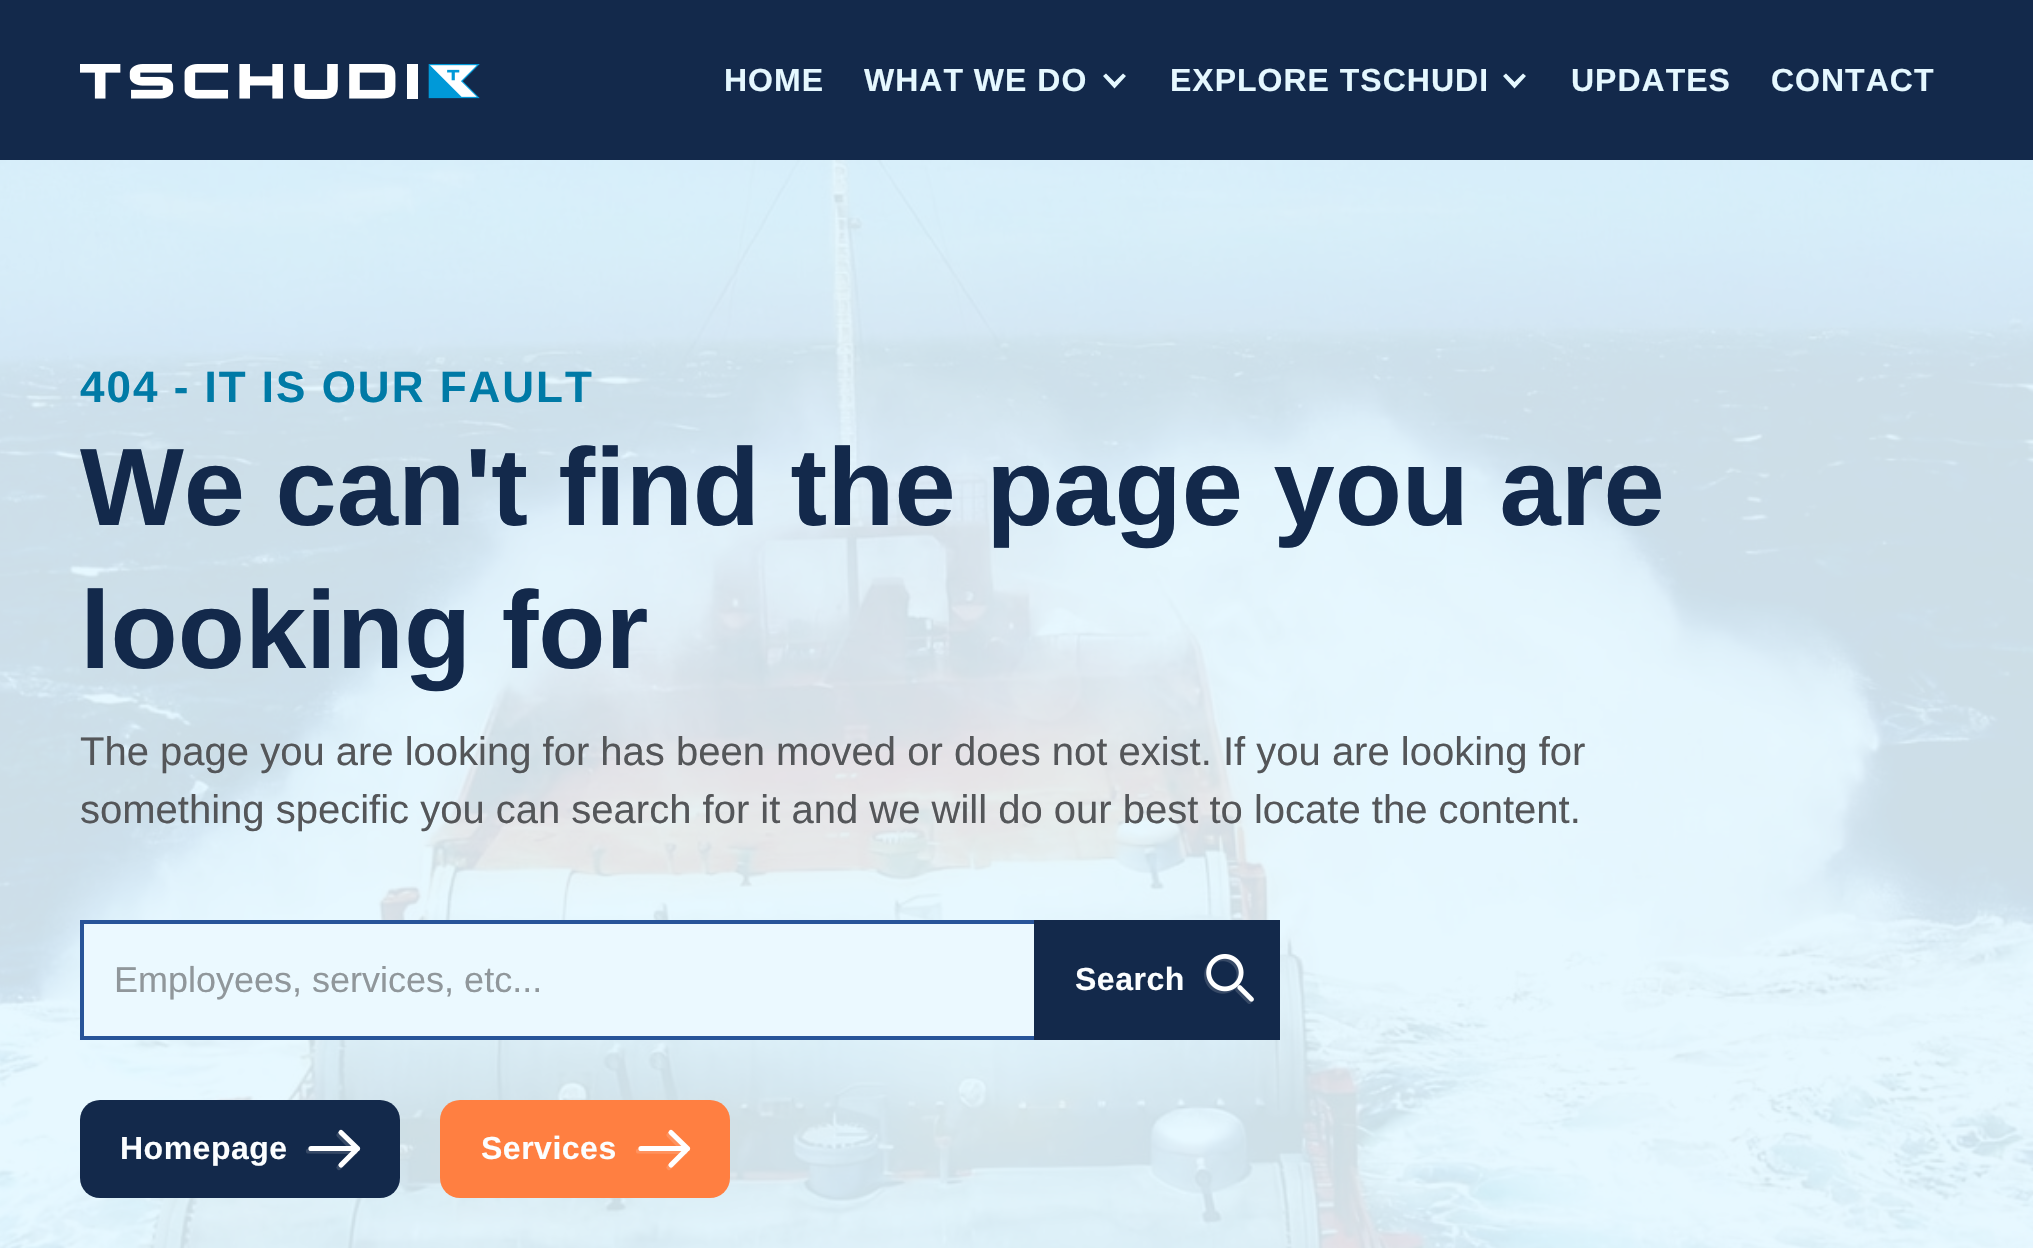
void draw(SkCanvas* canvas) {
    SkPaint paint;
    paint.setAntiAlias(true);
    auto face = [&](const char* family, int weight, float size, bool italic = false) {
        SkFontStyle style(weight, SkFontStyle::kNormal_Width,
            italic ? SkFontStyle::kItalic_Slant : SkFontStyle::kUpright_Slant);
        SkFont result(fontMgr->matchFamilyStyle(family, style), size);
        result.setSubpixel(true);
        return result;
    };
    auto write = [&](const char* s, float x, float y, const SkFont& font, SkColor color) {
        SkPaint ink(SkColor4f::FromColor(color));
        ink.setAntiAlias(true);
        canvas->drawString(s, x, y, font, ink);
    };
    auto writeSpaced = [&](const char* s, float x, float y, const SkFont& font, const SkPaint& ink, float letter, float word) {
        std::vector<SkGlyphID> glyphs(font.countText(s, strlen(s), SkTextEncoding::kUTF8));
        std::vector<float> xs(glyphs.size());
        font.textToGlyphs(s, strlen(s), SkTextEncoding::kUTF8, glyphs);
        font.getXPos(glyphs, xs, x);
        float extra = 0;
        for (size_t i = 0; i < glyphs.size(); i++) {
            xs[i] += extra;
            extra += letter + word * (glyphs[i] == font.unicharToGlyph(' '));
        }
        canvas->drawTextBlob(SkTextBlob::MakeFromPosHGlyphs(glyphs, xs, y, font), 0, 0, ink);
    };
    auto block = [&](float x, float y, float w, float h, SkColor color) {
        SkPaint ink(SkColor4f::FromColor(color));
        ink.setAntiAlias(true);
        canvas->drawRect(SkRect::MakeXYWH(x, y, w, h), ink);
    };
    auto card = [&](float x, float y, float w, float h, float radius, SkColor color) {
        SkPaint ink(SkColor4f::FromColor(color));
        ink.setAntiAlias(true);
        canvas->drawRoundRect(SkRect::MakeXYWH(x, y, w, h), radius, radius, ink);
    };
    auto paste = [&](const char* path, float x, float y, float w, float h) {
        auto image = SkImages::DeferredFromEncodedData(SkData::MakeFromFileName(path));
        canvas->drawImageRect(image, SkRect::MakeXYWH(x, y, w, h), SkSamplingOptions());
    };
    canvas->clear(SkColorSetRGB(229, 248, 255));
    block(0, 0, 2033, 160, SkColorSetRGB(19, 41, 75));
    paste("pic1.png", 80, 64, 400, 35);
    auto kFont1 = face("Liberation Sans", 700, 32);
    paint.setColor(SkColorSetRGB(229, 248, 255));
    writeSpaced("HOME", 724, 91, kFont1, paint, 1, 0);
    writeSpaced("WHAT WE DO", 864, 91, kFont1, paint, 1, 0);
    canvas->drawPath(SkPathBuilder().moveTo(1123, 73.5f).lineTo(1114.5f, 82).lineTo(1106, 73.5f).lineTo(1103, 76).lineTo(1114.5f, 88.5f).lineTo(1126, 76).close().detach(), paint);
    writeSpaced("EXPLORE TSCHUDI", 1170, 91, kFont1, paint, 1, 0);
    canvas->drawPath(SkPathBuilder().moveTo(1523, 73.5f).lineTo(1514.5f, 82).lineTo(1506, 73.5f).lineTo(1503, 76).lineTo(1514.5f, 88.5f).lineTo(1526, 76).close().detach(), paint);
    writeSpaced("UPDATES", 1571, 91, kFont1, paint, 1, 0);
    writeSpaced("CONTACT", 1771, 91, kFont1, paint, 1, 0);
    paste("pic2.png", 0, 160, 2033, 1088);
    auto kFont2 = face("Liberation Sans", 700, 44);
    paint.setColor(SkColorSetRGB(0, 122, 166));
    writeSpaced("404 - IT IS OUR FAULT", 80, 402, kFont2, paint, 2, 0);
    auto kFont3 = face("Liberation Sans", 700, 110);
    write("We can't find the page you are", 80, 525, kFont3, SkColorSetRGB(19, 41, 75));
    write("looking for", 80, 668, kFont3, SkColorSetRGB(19, 41, 75));
    auto kFont4 = face("Liberation Sans", 400, 40);
    write("The page you are looking for has been moved or does not exist. If you are looking for", 80, 765, kFont4, SkColorSetRGB(84, 86, 89));
    write("something specific you can search for it and we will do our best to locate the content.", 80, 823, kFont4, SkColorSetRGB(84, 86, 89));
    block(84, 924, 950, 112, SkColorSetRGB(235, 249, 255));
    block(80, 920, 954, 4, SkColorSetRGB(39, 84, 153));
    block(80, 1036, 954, 4, SkColorSetRGB(39, 84, 153));
    block(80, 920, 4, 120, SkColorSetRGB(39, 84, 153));
    auto kFont5 = face("Liberation Sans", 400, 36);
    write("Employees, services, etc...", 114, 992, kFont5, SkColorSetRGB(144, 151, 155));
    block(1034, 920, 246, 120, SkColorSetRGB(19, 41, 75));
    paste("pic3.png", 1204, 954, 50, 50);
    paint.setColor(SkColorSetRGB(252, 254, 255));
    writeSpaced("Search", 1075, 990, kFont1, paint, 0.5f, 0);
    card(80, 1100, 320, 98, 20, SkColorSetRGB(19, 41, 75));
    writeSpaced("Homepage", 120, 1159, kFont1, paint, 0.5f, 0);
    paint.setStyle(SkPaint::kStroke_Style);
    paint.setStrokeWidth(5.2f);
    paint.setStrokeCap(SkPaint::kRound_Cap);
    paint.setStrokeJoin(SkPaint::kRound_Join);
    paint.setColor(SK_ColorWHITE);
    canvas->drawPath(SkPathBuilder().moveTo(311, 1148.5f).lineTo(357.5f, 1148.5f).moveTo(341, 1132.5f).lineTo(357.5f, 1148.5f).moveTo(357.5f, 1148.5f).lineTo(341, 1165).detach(), paint);
    paint.setColor(SkColorSetARGB(38, 255, 255, 255));
    canvas->drawPath(SkPathBuilder().moveTo(308.5f, 1151).lineTo(355, 1151.5f).detach(), paint);
    canvas->drawPath(SkPathBuilder().moveTo(339, 1135).lineTo(355, 1151.5f).detach(), paint);
    canvas->drawPath(SkPathBuilder().moveTo(355, 1151.5f).lineTo(339, 1167.5f).detach(), paint);
    card(440, 1100, 290, 98, 20, SkColorSetRGB(255, 127, 65));
    paint.setStyle(SkPaint::kFill_Style);
    paint.setColor(SkColorSetRGB(252, 254, 255));
    writeSpaced("Services", 481, 1159, kFont1, paint, 0.5f, 0);
    paint.setStyle(SkPaint::kStroke_Style);
    paint.setColor(SK_ColorWHITE);
    canvas->drawPath(SkPathBuilder().moveTo(641, 1148.5f).lineTo(687.5f, 1148.5f).moveTo(671, 1132.5f).lineTo(687.5f, 1148.5f).moveTo(687.5f, 1148.5f).lineTo(671, 1165).detach(), paint);
    paint.setColor(SkColorSetARGB(38, 255, 255, 255));
    canvas->drawPath(SkPathBuilder().moveTo(638.5f, 1151).lineTo(685, 1151.5f).detach(), paint);
    canvas->drawPath(SkPathBuilder().moveTo(669, 1135).lineTo(685, 1151.5f).detach(), paint);
    canvas->drawPath(SkPathBuilder().moveTo(685, 1151.5f).lineTo(669, 1167.5f).detach(), paint);
}
